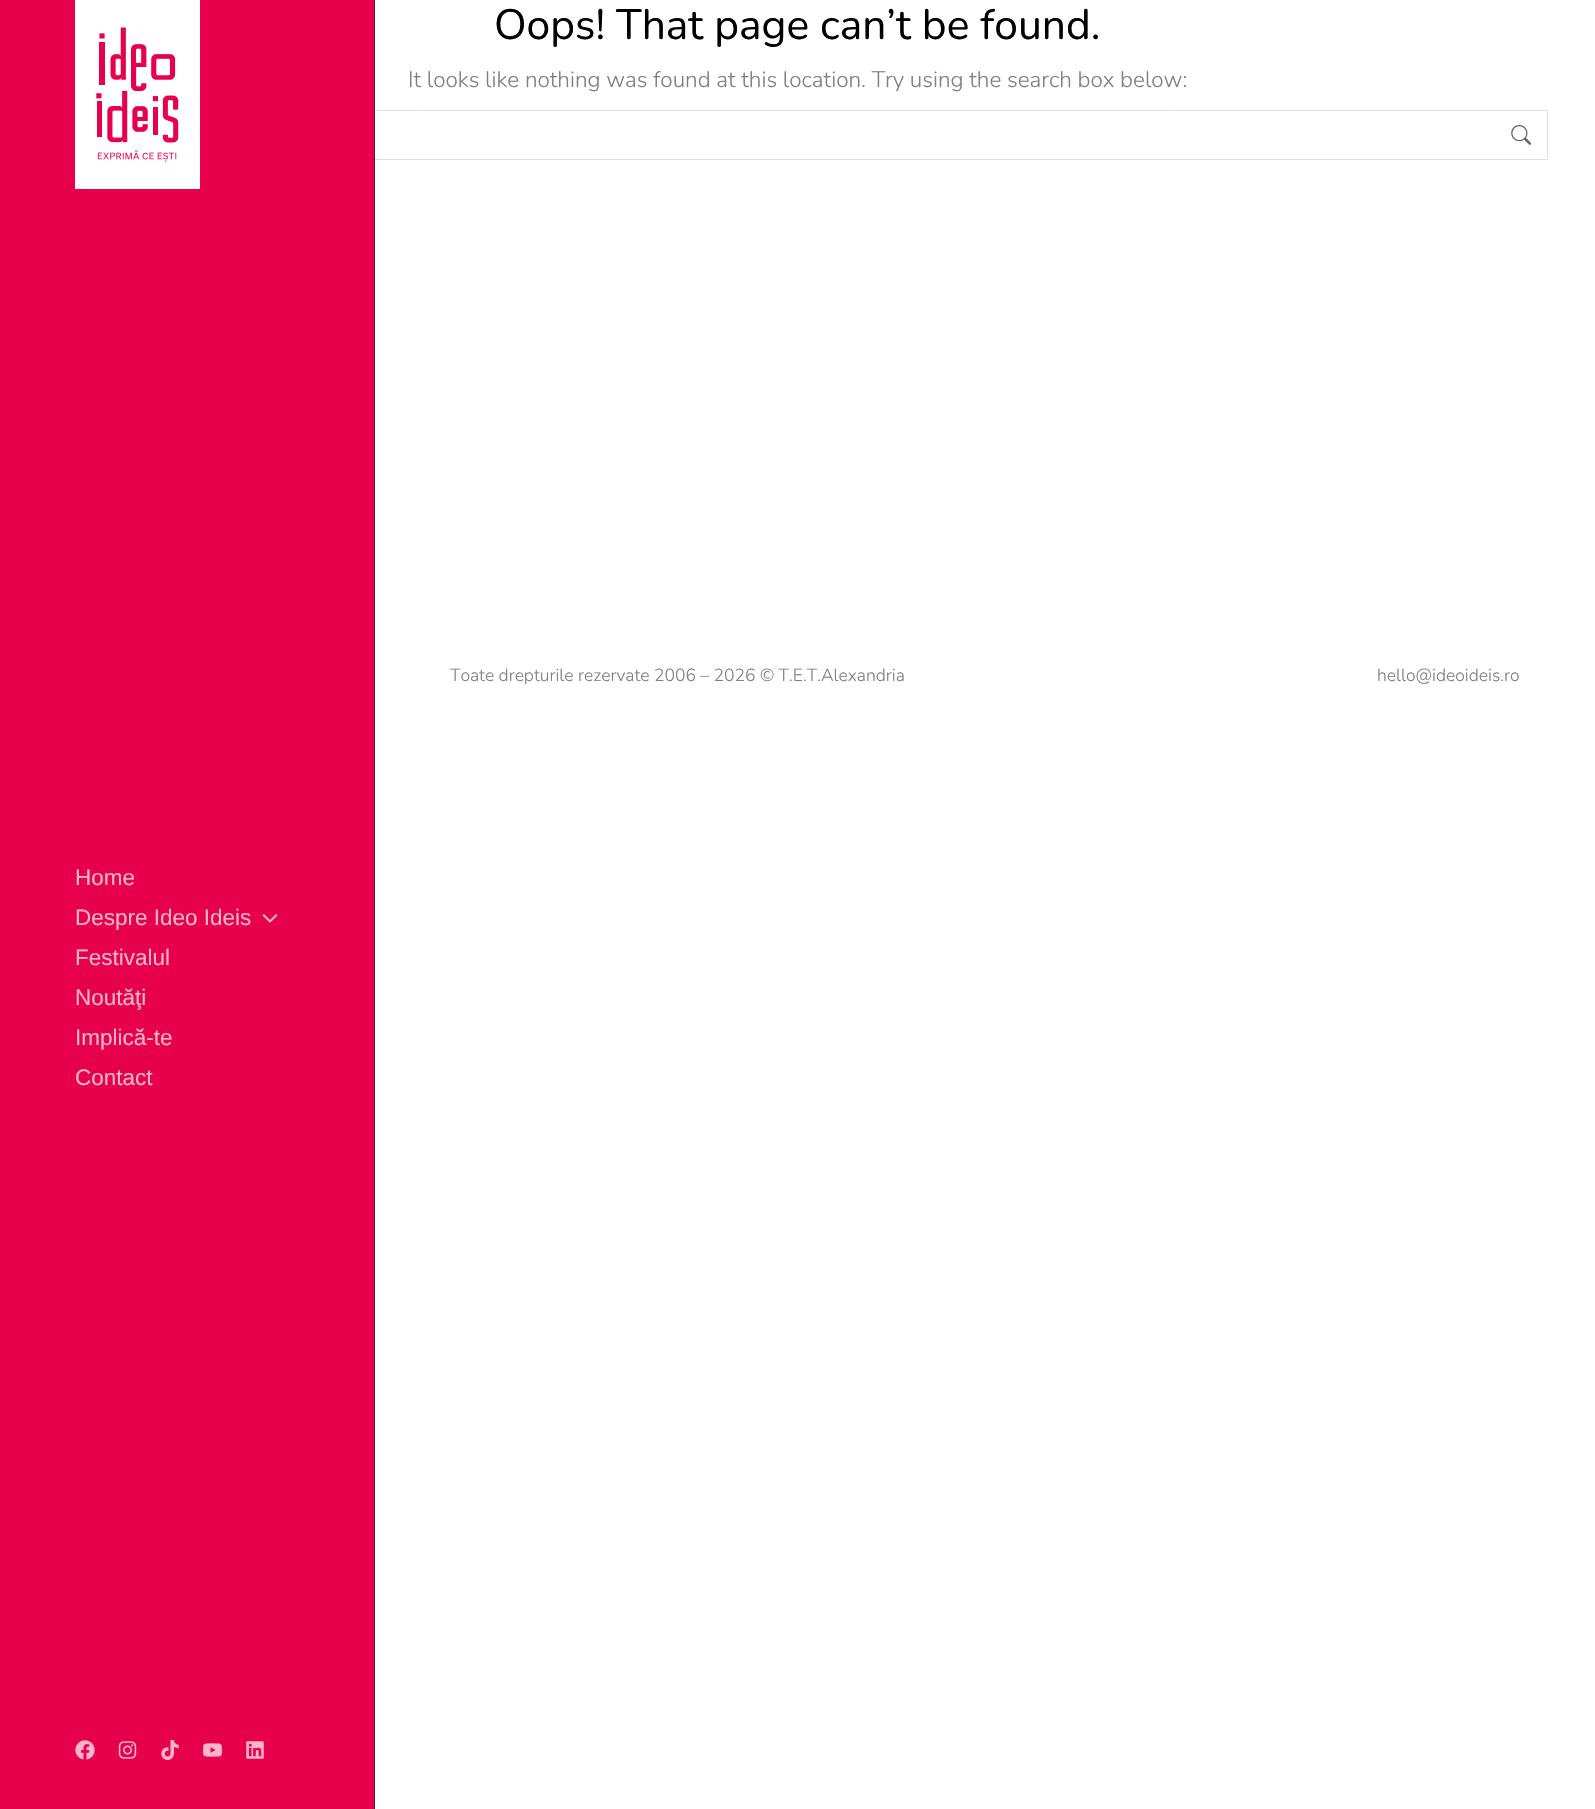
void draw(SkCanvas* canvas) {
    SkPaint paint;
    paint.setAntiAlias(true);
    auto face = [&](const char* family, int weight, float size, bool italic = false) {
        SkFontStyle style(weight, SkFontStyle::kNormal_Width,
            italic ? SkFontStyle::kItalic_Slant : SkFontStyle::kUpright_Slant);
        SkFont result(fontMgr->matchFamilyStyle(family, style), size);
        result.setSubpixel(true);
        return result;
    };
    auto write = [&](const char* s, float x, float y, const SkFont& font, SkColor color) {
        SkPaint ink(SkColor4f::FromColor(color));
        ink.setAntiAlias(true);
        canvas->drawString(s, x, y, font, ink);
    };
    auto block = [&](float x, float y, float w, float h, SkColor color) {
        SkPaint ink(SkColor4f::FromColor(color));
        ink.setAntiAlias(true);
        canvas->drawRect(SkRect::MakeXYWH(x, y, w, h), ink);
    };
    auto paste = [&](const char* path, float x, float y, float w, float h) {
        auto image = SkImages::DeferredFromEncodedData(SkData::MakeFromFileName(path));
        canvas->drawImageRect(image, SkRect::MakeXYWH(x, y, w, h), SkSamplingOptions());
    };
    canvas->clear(SK_ColorWHITE);
    auto kFont1 = face("Nunito", 400, 42.5f);
    write("Oops! That page can’t be found.", 494, 39, kFont1, SK_ColorBLACK);
    auto kFont2 = face("Nunito", 300, 22.5f);
    write("It looks like nothing was found at this location. Try using the search box below:", 408, 87, kFont2, SkColorSetRGB(124, 127, 131));
    paint.setStyle(SkPaint::kStroke_Style);
    paint.setStrokeWidth(1);
    paint.setColor(SkColorSetRGB(224, 224, 224));
    canvas->drawRoundRect(SkRect::MakeXYWH(48.5f, 110.5f, 1499, 49), 0.5f, 0.5f, paint);
    paste("pic1.png", 1511, 125, 20, 20);
    auto kFont3 = face("Nunito", 300, 17.5f);
    write("Toate drepturile rezervate 2006 – 2026 © T.E.T.Alexandria", 450, 681, kFont3, SkColorSetRGB(124, 127, 131));
    write("hello@ideoideis.ro", 1377, 681, kFont3, SkColorSetRGB(124, 127, 131));
    block(0, 0, 374, 1809, SkColorSetRGB(231, 0, 76));
    block(374, 0, 1, 1809, SkColorSetRGB(44, 45, 52));
    block(75, 0, 125, 189, SK_ColorWHITE);
    paste("pic2.png", 96, 27, 83, 136);
    auto kFont4 = face("Liberation Sans", 400, 22.5f);
    write("Home", 75, 885, kFont4, SkColorSetRGB(248, 181, 203));
    write("Despre Ideo Ideis", 75, 925, kFont4, SkColorSetRGB(248, 181, 203));
    paste("pic3.png", 262, 914, 16, 9);
    write("Festivalul", 75, 965, kFont4, SkColorSetRGB(248, 181, 203));
    write("Noutăţi", 75, 1005, kFont4, SkColorSetRGB(248, 181, 203));
    write("Implică-te", 75, 1045, kFont4, SkColorSetRGB(248, 181, 203));
    write("Contact", 75, 1085, kFont4, SkColorSetRGB(248, 181, 203));
    paste("pic4.png", 75, 1740, 20, 20);
    paste("pic5.png", 118, 1741, 19, 18);
    paste("pic6.png", 161, 1740, 18, 20);
    paste("pic7.png", 203, 1743, 19, 14);
    paste("pic8.png", 246, 1741, 18, 18);
}
